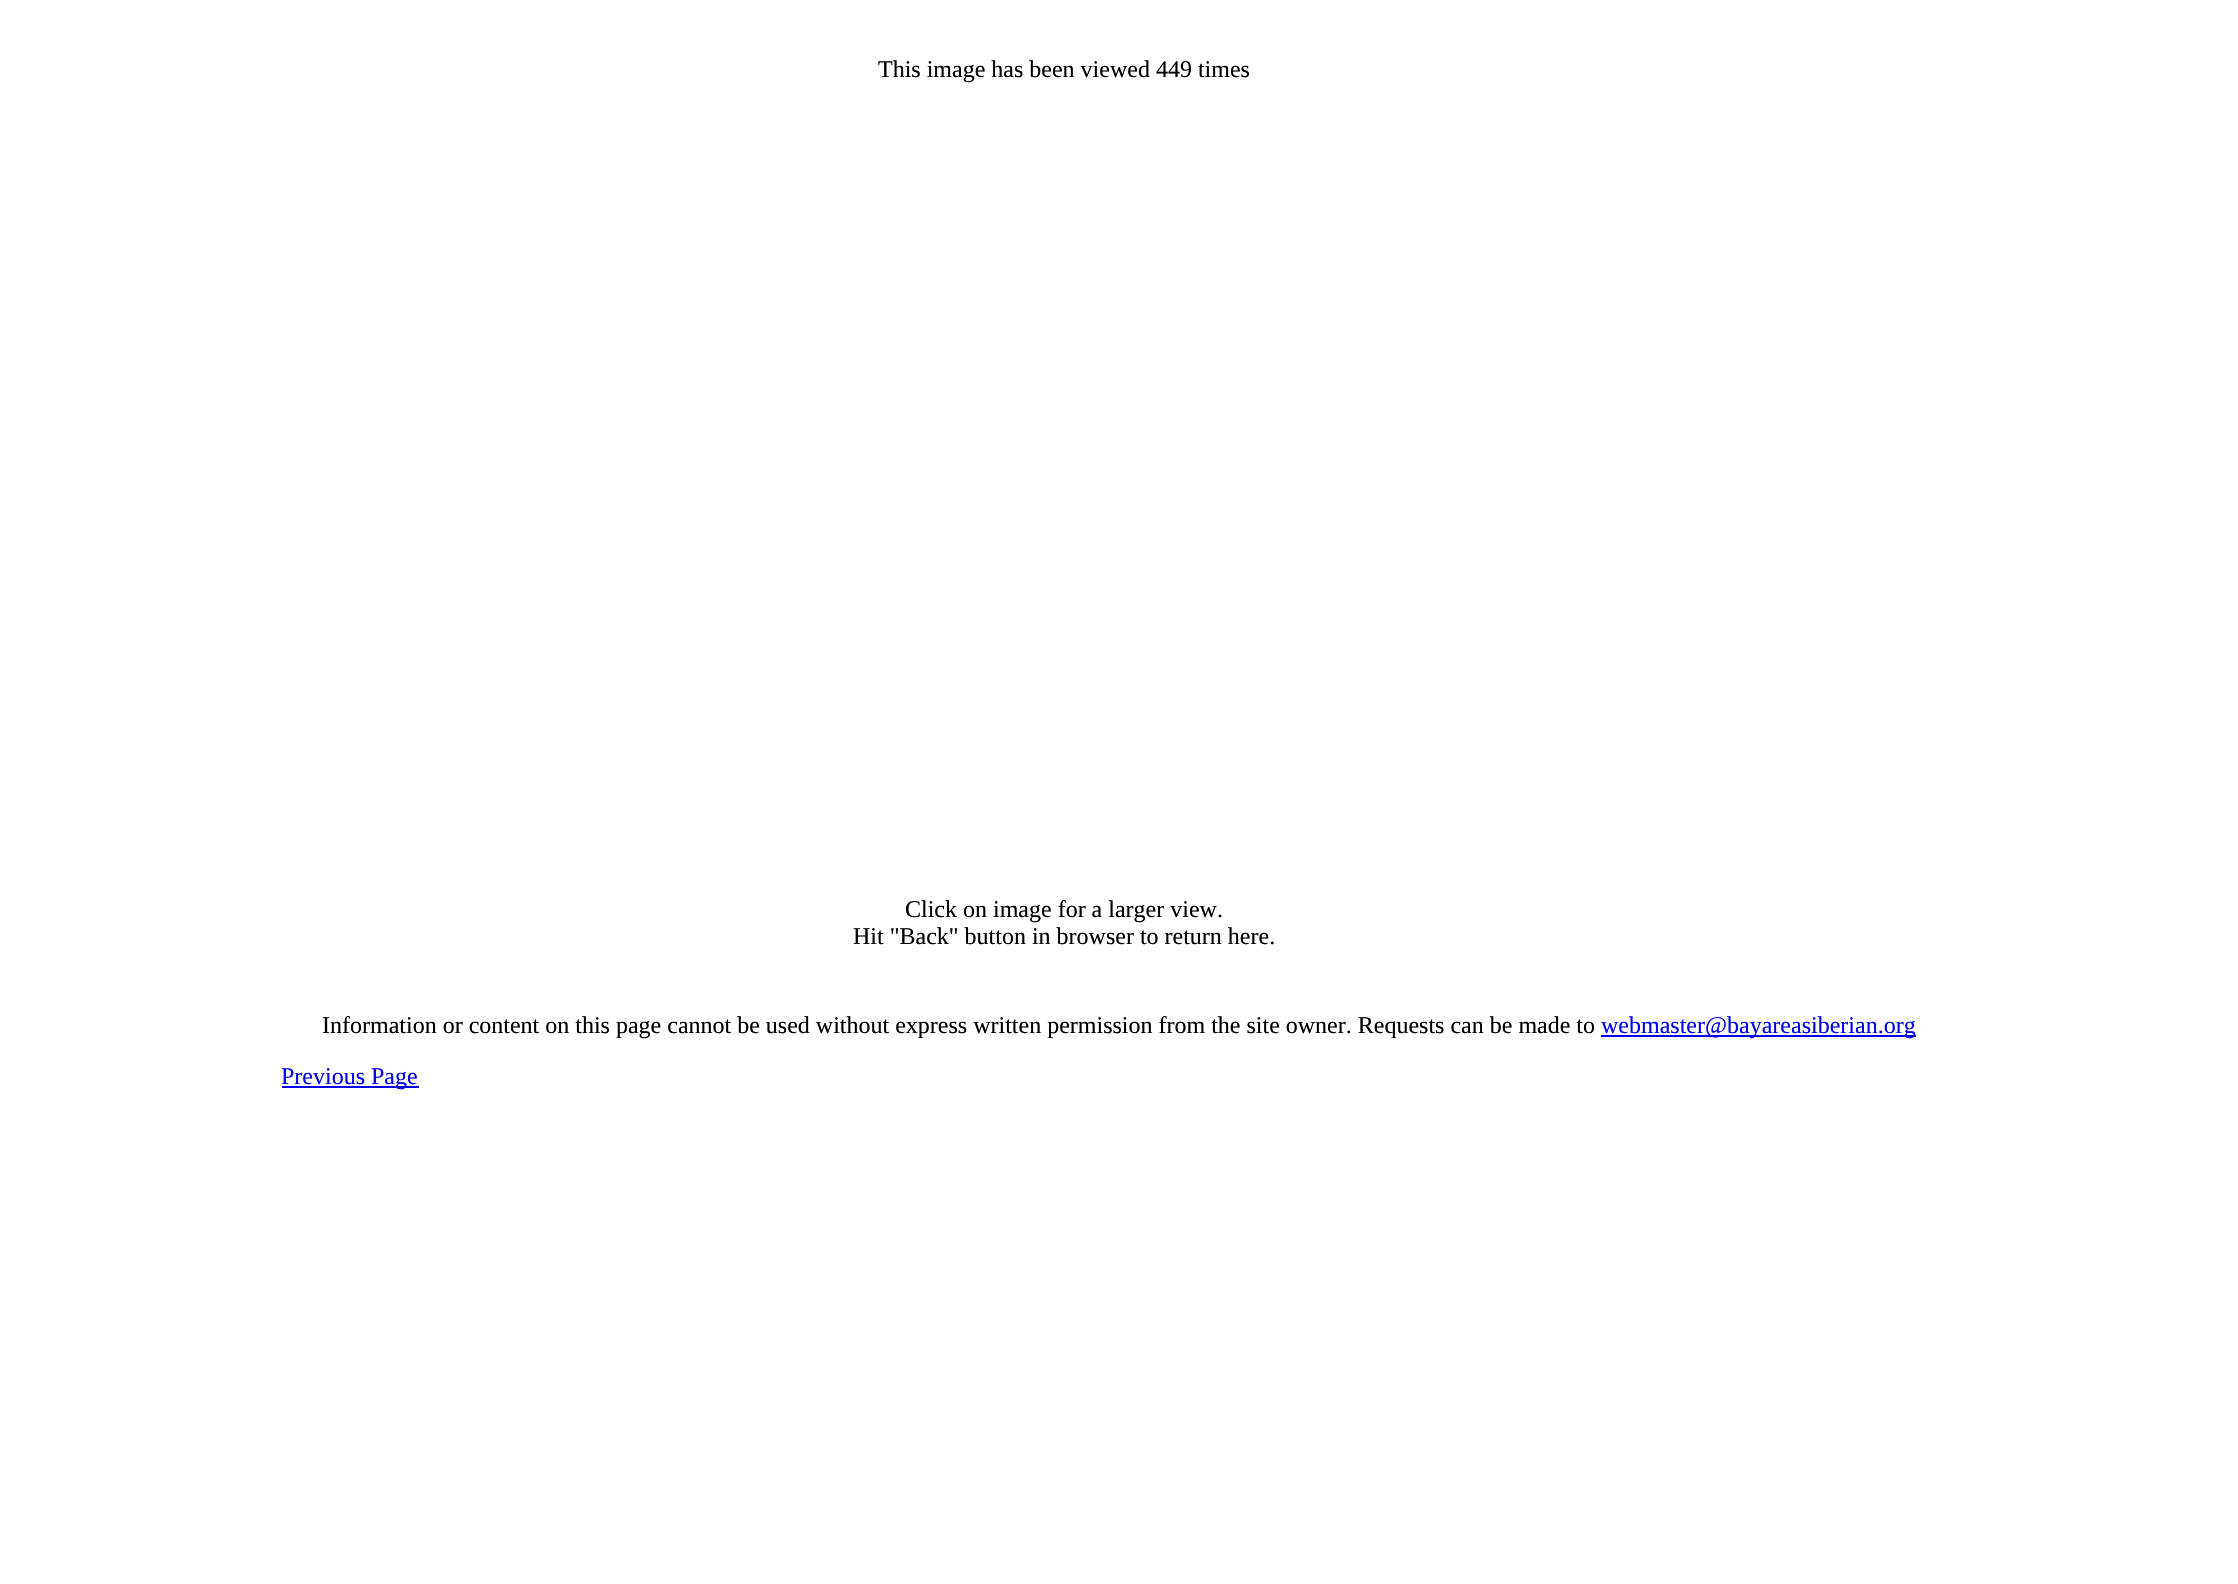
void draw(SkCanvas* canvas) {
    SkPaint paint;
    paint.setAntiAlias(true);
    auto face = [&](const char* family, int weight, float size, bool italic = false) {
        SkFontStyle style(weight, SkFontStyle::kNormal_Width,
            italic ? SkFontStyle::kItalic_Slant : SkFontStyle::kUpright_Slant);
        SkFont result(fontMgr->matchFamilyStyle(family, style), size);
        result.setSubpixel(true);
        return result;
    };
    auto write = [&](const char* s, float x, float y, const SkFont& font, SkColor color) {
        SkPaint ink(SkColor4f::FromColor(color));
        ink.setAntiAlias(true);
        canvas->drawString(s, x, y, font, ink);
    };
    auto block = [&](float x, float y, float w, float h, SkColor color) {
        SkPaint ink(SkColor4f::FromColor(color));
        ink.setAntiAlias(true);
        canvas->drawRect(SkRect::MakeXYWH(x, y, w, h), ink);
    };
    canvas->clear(SK_ColorWHITE);
    auto kFont1 = face("Liberation Serif", 400, 24);
    write("This image has been viewed 449 times", 878, 77, kFont1, SK_ColorBLACK);
    write("Click on image for a larger view.", 905, 917, kFont1, SK_ColorBLACK);
    write("Hit \"Back\" button in browser to return here.", 853, 944, kFont1, SK_ColorBLACK);
    write("Information or content on this page cannot be used without express written permission from the site owner. Requests can be made to", 322, 1033, kFont1, SK_ColorBLACK);
    block(1601, 1035, 315, 2, SkColorSetRGB(0, 0, 238));
    write("webmaster@bayareasiberian.org", 1601, 1033, kFont1, SkColorSetRGB(0, 0, 238));
    block(282, 1086, 137, 2, SkColorSetRGB(0, 0, 238));
    write("Previous Page", 281, 1084, kFont1, SkColorSetRGB(0, 0, 238));
}
